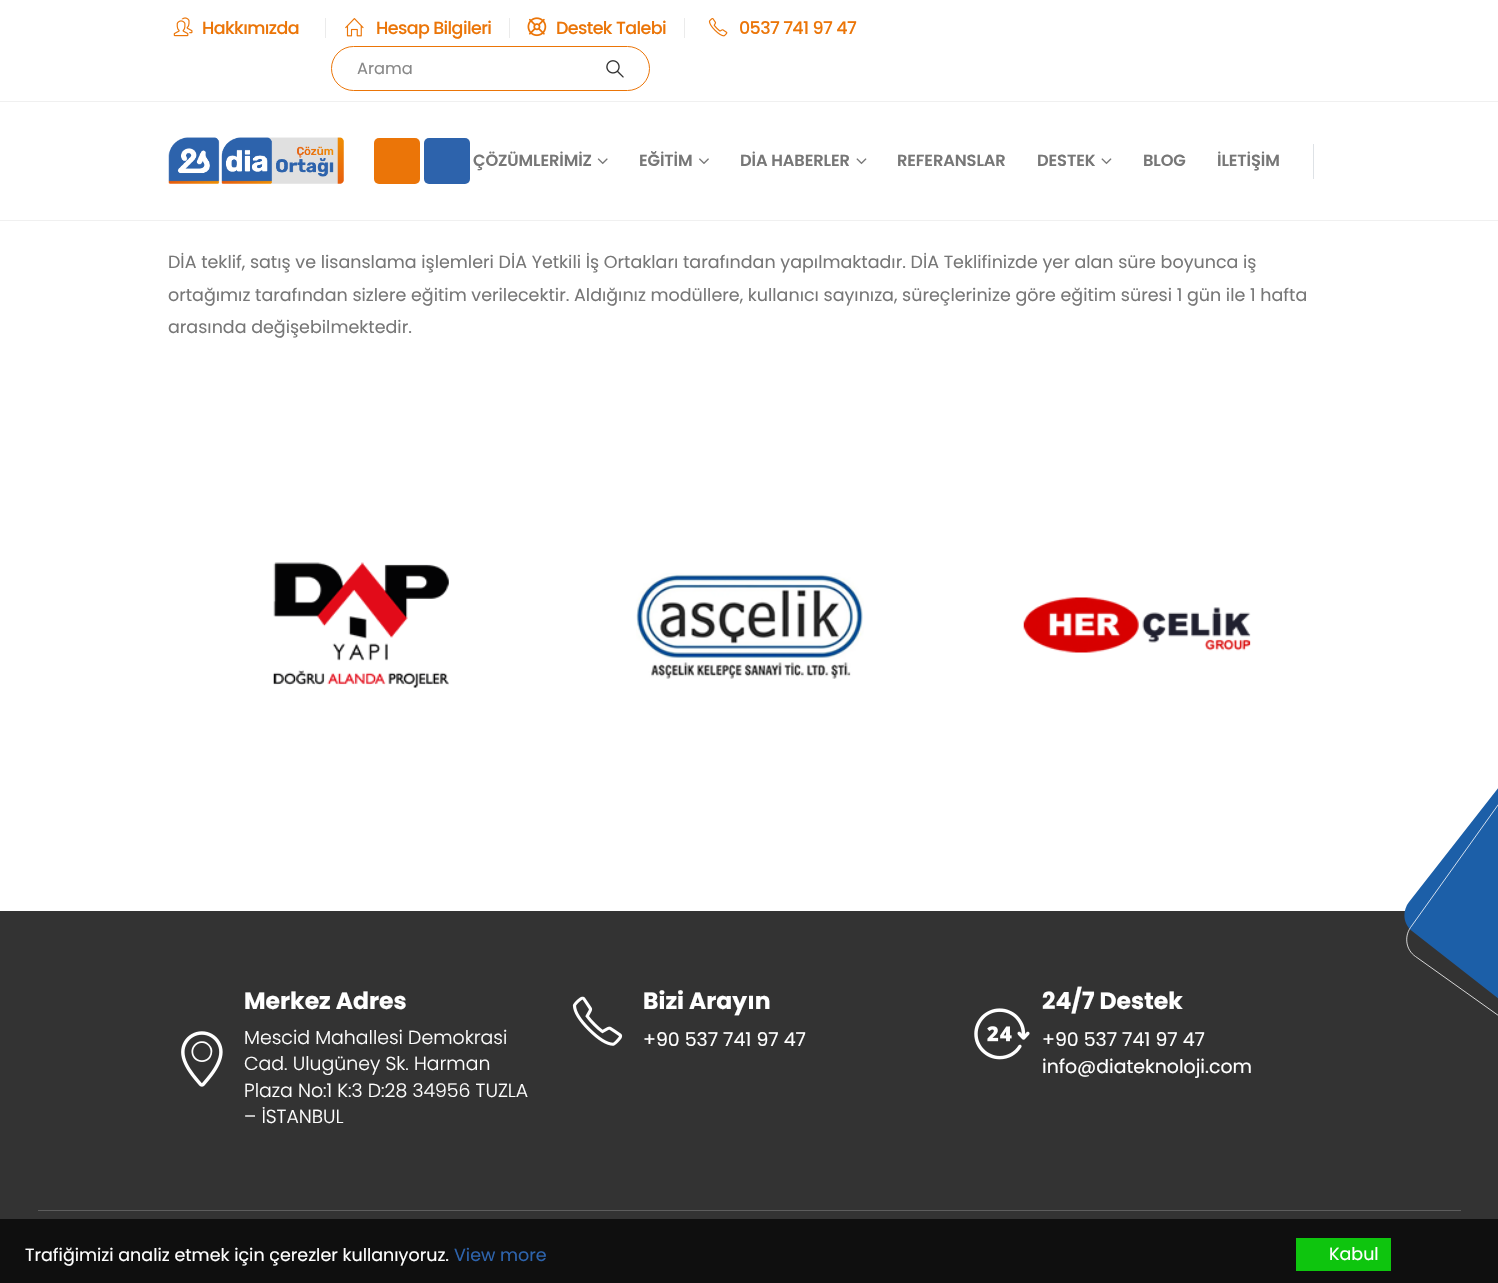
void draw(SkCanvas* canvas) {
    SkPaint paint;
    paint.setAntiAlias(true);
    auto face = [&](const char* family, int weight, float size, bool italic = false) {
        SkFontStyle style(weight, SkFontStyle::kNormal_Width,
            italic ? SkFontStyle::kItalic_Slant : SkFontStyle::kUpright_Slant);
        SkFont result(fontMgr->matchFamilyStyle(family, style), size);
        result.setSubpixel(true);
        return result;
    };
    auto write = [&](const char* s, float x, float y, const SkFont& font, SkColor color) {
        SkPaint ink(SkColor4f::FromColor(color));
        ink.setAntiAlias(true);
        canvas->drawString(s, x, y, font, ink);
    };
    auto writeSpaced = [&](const char* s, float x, float y, const SkFont& font, const SkPaint& ink, float letter, float word) {
        std::vector<SkGlyphID> glyphs(font.countText(s, strlen(s), SkTextEncoding::kUTF8));
        std::vector<float> xs(glyphs.size());
        font.textToGlyphs(s, strlen(s), SkTextEncoding::kUTF8, glyphs);
        font.getXPos(glyphs, xs, x);
        float extra = 0;
        for (size_t i = 0; i < glyphs.size(); i++) {
            xs[i] += extra;
            extra += letter + word * (glyphs[i] == font.unicharToGlyph(' '));
        }
        canvas->drawTextBlob(SkTextBlob::MakeFromPosHGlyphs(glyphs, xs, y, font), 0, 0, ink);
    };
    auto block = [&](float x, float y, float w, float h, SkColor color) {
        SkPaint ink(SkColor4f::FromColor(color));
        ink.setAntiAlias(true);
        canvas->drawRect(SkRect::MakeXYWH(x, y, w, h), ink);
    };
    auto card = [&](float x, float y, float w, float h, float radius, SkColor color) {
        SkPaint ink(SkColor4f::FromColor(color));
        ink.setAntiAlias(true);
        canvas->drawRoundRect(SkRect::MakeXYWH(x, y, w, h), radius, radius, ink);
    };
    auto paste = [&](const char* path, float x, float y, float w, float h) {
        auto image = SkImages::DeferredFromEncodedData(SkData::MakeFromFileName(path));
        canvas->drawImageRect(image, SkRect::MakeXYWH(x, y, w, h), SkSamplingOptions());
    };
    canvas->clear(SK_ColorWHITE);
    block(0, 101, 1498, 1, SkColorSetRGB(240, 240, 240));
    paste("pic1.png", 173, 17, 20, 20);
    auto kFont1 = face("Poppins", 500, 17.5f);
    paint.setColor(SkColorSetRGB(235, 117, 8));
    writeSpaced("Hakkımızda", 202, 34, kFont1, paint, -0.6f, 0);
    block(325, 18, 1, 20, SkColorSetRGB(235, 235, 235));
    paste("pic2.png", 345, 18, 19, 19);
    writeSpaced("Hesap Bilgileri", 376, 34, kFont1, paint, -0.6f, 0);
    block(509, 18, 1, 20, SkColorSetRGB(235, 235, 235));
    paste("pic3.png", 527, 17, 20, 20);
    writeSpaced("Destek Talebi", 556, 34, kFont1, paint, -0.6f, 0);
    block(684, 18, 1, 20, SkColorSetRGB(235, 235, 235));
    paste("pic4.png", 708, 18, 20, 19);
    writeSpaced("0537 741 97 47", 739, 34, kFont1, paint, -0.6f, 0);
    paint.setStyle(SkPaint::kStroke_Style);
    paint.setStrokeWidth(1);
    canvas->drawRoundRect(SkRect::MakeXYWH(331.5f, 46.5f, 318, 44), 22, 22, paint);
    auto kFont2 = face("Poppins", 400, 16.25f);
    write("Arama", 357, 74, kFont2, SkColorSetRGB(136, 136, 136));
    paste("pic5.png", 606, 60, 18, 18);
    block(0, 220, 1498, 1, SkColorSetRGB(240, 240, 240));
    paste("pic6.png", 168, 137, 176, 47);
    card(374, 138, 46, 46, 5, SkColorSetRGB(235, 117, 8));
    card(424, 138, 46, 46, 5, SkColorSetRGB(45, 99, 172));
    auto kFont3 = face("Poppins", 600, 16.25f);
    paint.setStyle(SkPaint::kFill_Style);
    paint.setColor(SkColorSetRGB(119, 119, 119));
    writeSpaced("ÇÖZÜMLERİMİZ", 473, 166, kFont3, paint, -0.1f, 0);
    paste("pic7.png", 597, 158, 11, 7);
    writeSpaced("EĞİTİM", 639, 166, kFont3, paint, -0.1f, 0);
    paste("pic8.png", 699, 158, 10, 6);
    writeSpaced("DİA HABERLER", 740, 166, kFont3, paint, -0.1f, 0);
    paste("pic9.png", 856, 158, 11, 7);
    writeSpaced("REFERANSLAR", 897, 166, kFont3, paint, -0.1f, 0);
    writeSpaced("DESTEK", 1037, 166, kFont3, paint, -0.1f, 0);
    paste("pic9.png", 1101, 158, 11, 7);
    writeSpaced("BLOG", 1143, 166, kFont3, paint, -0.1f, 0);
    writeSpaced("İLETİŞİM", 1217, 166, kFont3, paint, -0.1f, 0);
    block(1313, 144, 1, 35, SkColorSetRGB(222, 226, 230));
    auto kFont4 = face("Poppins", 400, 17.5f);
    write("DİA teklif, satış ve lisanslama işlemleri DİA Yetkili İş Ortakları tarafından yapılmaktadır. DİA Teklifinizde yer alan süre boyunca iş", 168, 268, kFont4, SkColorSetRGB(119, 119, 119));
    write("ortağımız tarafından sizlere eğitim verilecektir. Aldığınız modüllere, kullanıcı sayınıza, süreçlerinize göre eğitim süresi 1 gün ile 1 hafta", 168, 301, kFont4, SkColorSetRGB(119, 119, 119));
    write("arasında değişebilmektedir.", 168, 333, kFont4, SkColorSetRGB(119, 119, 119));
    paste("pic10.png", 273, 562, 176, 126);
    paste("pic11.png", 636, 573, 228, 106);
    paste("pic12.png", 1023, 597, 228, 56);
    block(0, 911, 1498, 308, SkColorSetRGB(51, 51, 51));
    paint.setColor(SkColorSetRGB(28, 95, 168));
    canvas->drawPath(SkPathBuilder().moveTo(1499, 787).lineTo(1409, 902).cubicTo(1402, 911, 1403, 924, 1412, 931).lineTo(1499, 999).close().detach(), paint);
    paint.setStyle(SkPaint::kStroke_Style);
    paint.setStrokeWidth(0.8f);
    paint.setColor(SK_ColorWHITE);
    canvas->drawPath(SkPathBuilder().moveTo(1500.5f, 801.5f).lineTo(1410.5f, 927.5f).cubicTo(1404, 937, 1406, 950, 1415.5f, 956.5f).lineTo(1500.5f, 1017).close().detach(), paint);
    block(38, 1210, 1423, 1, SkColorSetRGB(92, 92, 92));
    paste("pic13.png", 181, 1031, 42, 56);
    auto kFont5 = face("Poppins", 700, 23.5f);
    write("Merkez Adres", 244, 1009, kFont5, SK_ColorWHITE);
    auto kFont6 = face("Poppins", 300, 18.9f);
    write("Mescid Mahallesi Demokrasi", 244, 1044, kFont6, SK_ColorWHITE);
    write("Cad. Ulugüney Sk. Harman", 244, 1070, kFont6, SK_ColorWHITE);
    write("Plaza No:1 K:3 D:28 34956 TUZLA", 244, 1097, kFont6, SK_ColorWHITE);
    write("– İSTANBUL", 244, 1123, kFont6, SK_ColorWHITE);
    paste("pic14.png", 572, 996, 51, 50);
    write("Bizi Arayın", 643, 1009, kFont5, SK_ColorWHITE);
    auto kFont7 = face("Poppins", 400, 18.9f);
    write("+90 537 741 97 47", 643, 1046, kFont7, SK_ColorWHITE);
    paste("pic15.png", 974, 1008, 56, 52);
    write("24/7 Destek", 1042, 1009, kFont5, SK_ColorWHITE);
    write("+90 537 741 97 47", 1042, 1046, kFont7, SK_ColorWHITE);
    write("info@diateknoloji.com", 1042, 1073, kFont7, SK_ColorWHITE);
    block(0, 1219, 1498, 64, SkColorSetRGB(15, 15, 15));
    write("Trafiğimizi analiz etmek için çerezler kullanıyoruz.", 25, 1261, kFont4, SK_ColorWHITE);
    write("View more", 454, 1261, kFont4, SkColorSetRGB(45, 99, 172));
    block(1296, 1238, 95, 33, SkColorSetRGB(14, 197, 14));
    write("Kabul", 1329, 1260, kFont4, SK_ColorWHITE);
}
